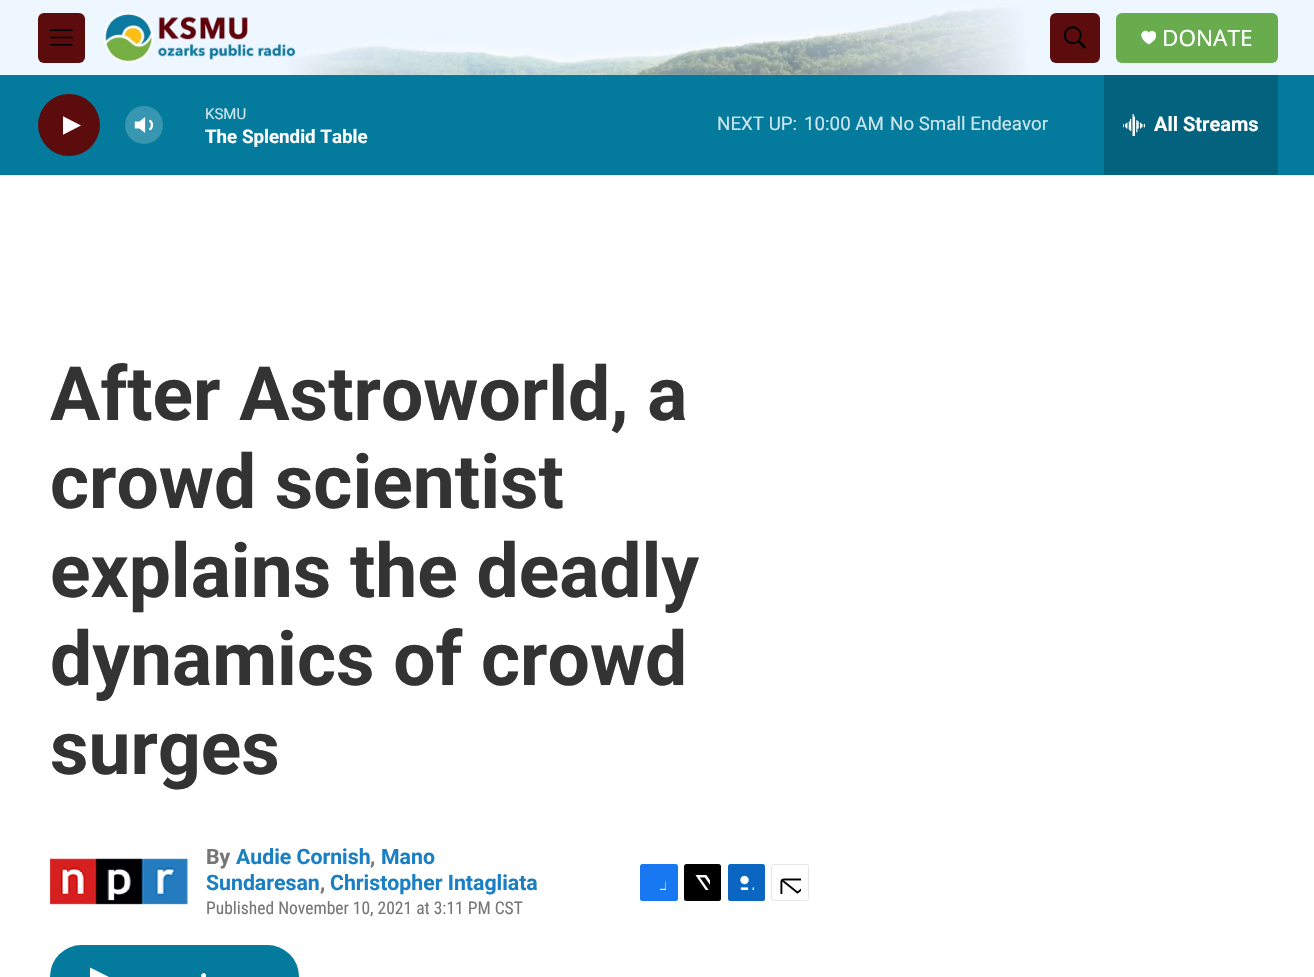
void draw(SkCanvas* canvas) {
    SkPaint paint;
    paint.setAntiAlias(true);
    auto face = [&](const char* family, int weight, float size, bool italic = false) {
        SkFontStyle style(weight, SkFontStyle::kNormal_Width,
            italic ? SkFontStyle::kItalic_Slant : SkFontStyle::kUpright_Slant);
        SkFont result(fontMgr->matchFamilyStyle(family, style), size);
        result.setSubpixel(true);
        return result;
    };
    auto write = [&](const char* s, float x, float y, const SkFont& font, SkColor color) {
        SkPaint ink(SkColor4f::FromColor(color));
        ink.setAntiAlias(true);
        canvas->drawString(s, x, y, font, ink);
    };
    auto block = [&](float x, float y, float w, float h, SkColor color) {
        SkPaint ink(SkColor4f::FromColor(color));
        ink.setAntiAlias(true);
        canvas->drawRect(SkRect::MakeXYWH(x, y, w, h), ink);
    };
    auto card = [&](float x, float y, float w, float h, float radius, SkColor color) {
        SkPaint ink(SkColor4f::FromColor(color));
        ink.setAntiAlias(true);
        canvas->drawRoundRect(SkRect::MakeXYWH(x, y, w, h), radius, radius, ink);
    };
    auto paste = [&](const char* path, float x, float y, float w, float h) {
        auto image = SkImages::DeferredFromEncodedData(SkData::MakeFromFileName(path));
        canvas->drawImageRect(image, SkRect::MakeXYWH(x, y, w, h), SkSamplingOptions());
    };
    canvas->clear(SK_ColorWHITE);
    block(0, 175, 1314, 1, SkColorSetRGB(245, 245, 245));
    paste("pic1.png", 0, 0, 1314, 75);
    card(38, 13, 47, 50, 6, SkColorSetRGB(92, 12, 12));
    paste("pic2.png", 50, 29, 23, 17);
    paste("pic3.png", 104, 12, 191, 51);
    card(1050, 13, 50, 50, 6, SkColorSetRGB(92, 12, 12));
    paste("pic4.png", 1064, 26, 22, 23);
    card(1116, 13, 162, 50, 6, SkColorSetRGB(104, 172, 77));
    canvas->save();
    canvas->clipRect(SkRect::MakeXYWH(1141, 30, 15, 15));
    paint.setColor(SK_ColorWHITE);
    canvas->drawPath(SkPathBuilder().moveTo(1149, 33).cubicTo(1146.5f, 26.5f, 1133, 35, 1149, 44.5f).cubicTo(1164.5f, 35, 1151, 26.5f, 1149, 33).close().detach(), paint);
    canvas->restore();
    auto kFont1 = face("Noto Sans", 400, 22.5f);
    write("DONATE", 1162, 46, kFont1, SK_ColorWHITE);
    block(0, 75, 1314, 100, SkColorSetRGB(4, 123, 156));
    paint.setColor(SkColorSetRGB(92, 12, 12));
    canvas->drawCircle(69, 125, 31, paint);
    canvas->save();
    canvas->clipRect(SkRect::MakeXYWH(63, 114, 18, 24));
    paint.setColor(SK_ColorWHITE);
    canvas->drawPath(SkPathBuilder().moveTo(62.5f, 116).lineTo(81, 125.5f).lineTo(62.5f, 135).close().detach(), paint);
    canvas->restore();
    paste("pic5.png", 134, 117, 20, 16);
    paint.setColor(SkColorSetARGB(51, 255, 255, 255));
    canvas->drawCircle(144, 125, 19, paint);
    auto kFont2 = face("Roboto", 400, 15);
    write("KSMU", 205, 119, kFont2, SkColorSetRGB(205, 229, 235));
    auto kFont3 = face("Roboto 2", 700, 18.75f);
    write("The Splendid Table", 205, 143, kFont3, SK_ColorWHITE);
    auto kFont4 = face("Roboto", 400, 18.75f);
    write("NEXT UP:", 717, 130, kFont4, SkColorSetRGB(205, 229, 235));
    write("10:00 AM", 804, 130, kFont4, SkColorSetRGB(205, 229, 235));
    write("No Small Endeavor", 890, 130, kFont4, SkColorSetRGB(205, 229, 235));
    block(1104, 75, 174, 100, SkColorSetRGB(3, 98, 125));
    paste("pic6.png", 1123, 114, 22, 22);
    auto kFont5 = face("Roboto 2", 700, 20);
    write("All Streams", 1154, 131, kFont5, SK_ColorWHITE);
    auto kFont6 = face("Roboto", 700, 75);
    write("After Astroworld, a", 50, 420, kFont6, SkColorSetRGB(51, 51, 51));
    write("crowd scientist", 50, 508, kFont6, SkColorSetRGB(51, 51, 51));
    write("explains the deadly", 50, 597, kFont6, SkColorSetRGB(51, 51, 51));
    write("dynamics of crowd", 50, 685, kFont6, SkColorSetRGB(51, 51, 51));
    write("surges", 50, 774, kFont6, SkColorSetRGB(51, 51, 51));
    paste("pic7.png", 50, 858, 138, 47);
    auto kFont7 = face("Roboto", 700, 21.25f);
    write("By", 206, 864, kFont7, SkColorSetRGB(118, 118, 118));
    write("Audie Cornish", 236, 864, kFont7, SkColorSetRGB(26, 127, 195));
    write(",", 370, 864, kFont7, SkColorSetRGB(118, 118, 118));
    write("Mano", 381, 864, kFont7, SkColorSetRGB(26, 127, 195));
    write("Sundaresan", 206, 890, kFont7, SkColorSetRGB(26, 127, 195));
    write(",", 320, 890, kFont7, SkColorSetRGB(118, 118, 118));
    write("Christopher Intagliata", 330, 890, kFont7, SkColorSetRGB(26, 127, 195));
    auto kFont8 = face("Roboto Condensed", 400, 17.5f);
    write("Published November 10, 2021 at 3:11 PM CST", 206, 914, kFont8, SkColorSetRGB(118, 118, 118));
    card(640, 864, 38, 37, 2.5f, SkColorSetRGB(23, 120, 242));
    paste("pic8.png", 660, 880, 6, 10);
    card(684, 864, 37, 37, 2.5f, SK_ColorBLACK);
    paste("pic9.png", 695, 875, 15, 15);
    card(728, 864, 37, 37, 2.5f, SkColorSetRGB(10, 102, 193));
    paste("pic10.png", 740, 875, 14, 15);
    paint.setStyle(SkPaint::kStroke_Style);
    paint.setStrokeWidth(1);
    paint.setColor(SkColorSetRGB(230, 230, 230));
    canvas->drawRoundRect(SkRect::MakeXYWH(771.5f, 864.5f, 37, 36), 2, 2, paint);
    paste("pic11.png", 780, 878, 21, 16);
    card(50, 945, 249, 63, 31.5f, SkColorSetRGB(4, 123, 156));
    paint.setStyle(SkPaint::kFill_Style);
    paint.setColor(SK_ColorWHITE);
    canvas->drawPath(SkPathBuilder().moveTo(90, 967.5f).lineTo(110, 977.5f).lineTo(90, 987.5f).close().detach(), paint);
    write("•", 200, 983, kFont5, SK_ColorWHITE);
}
